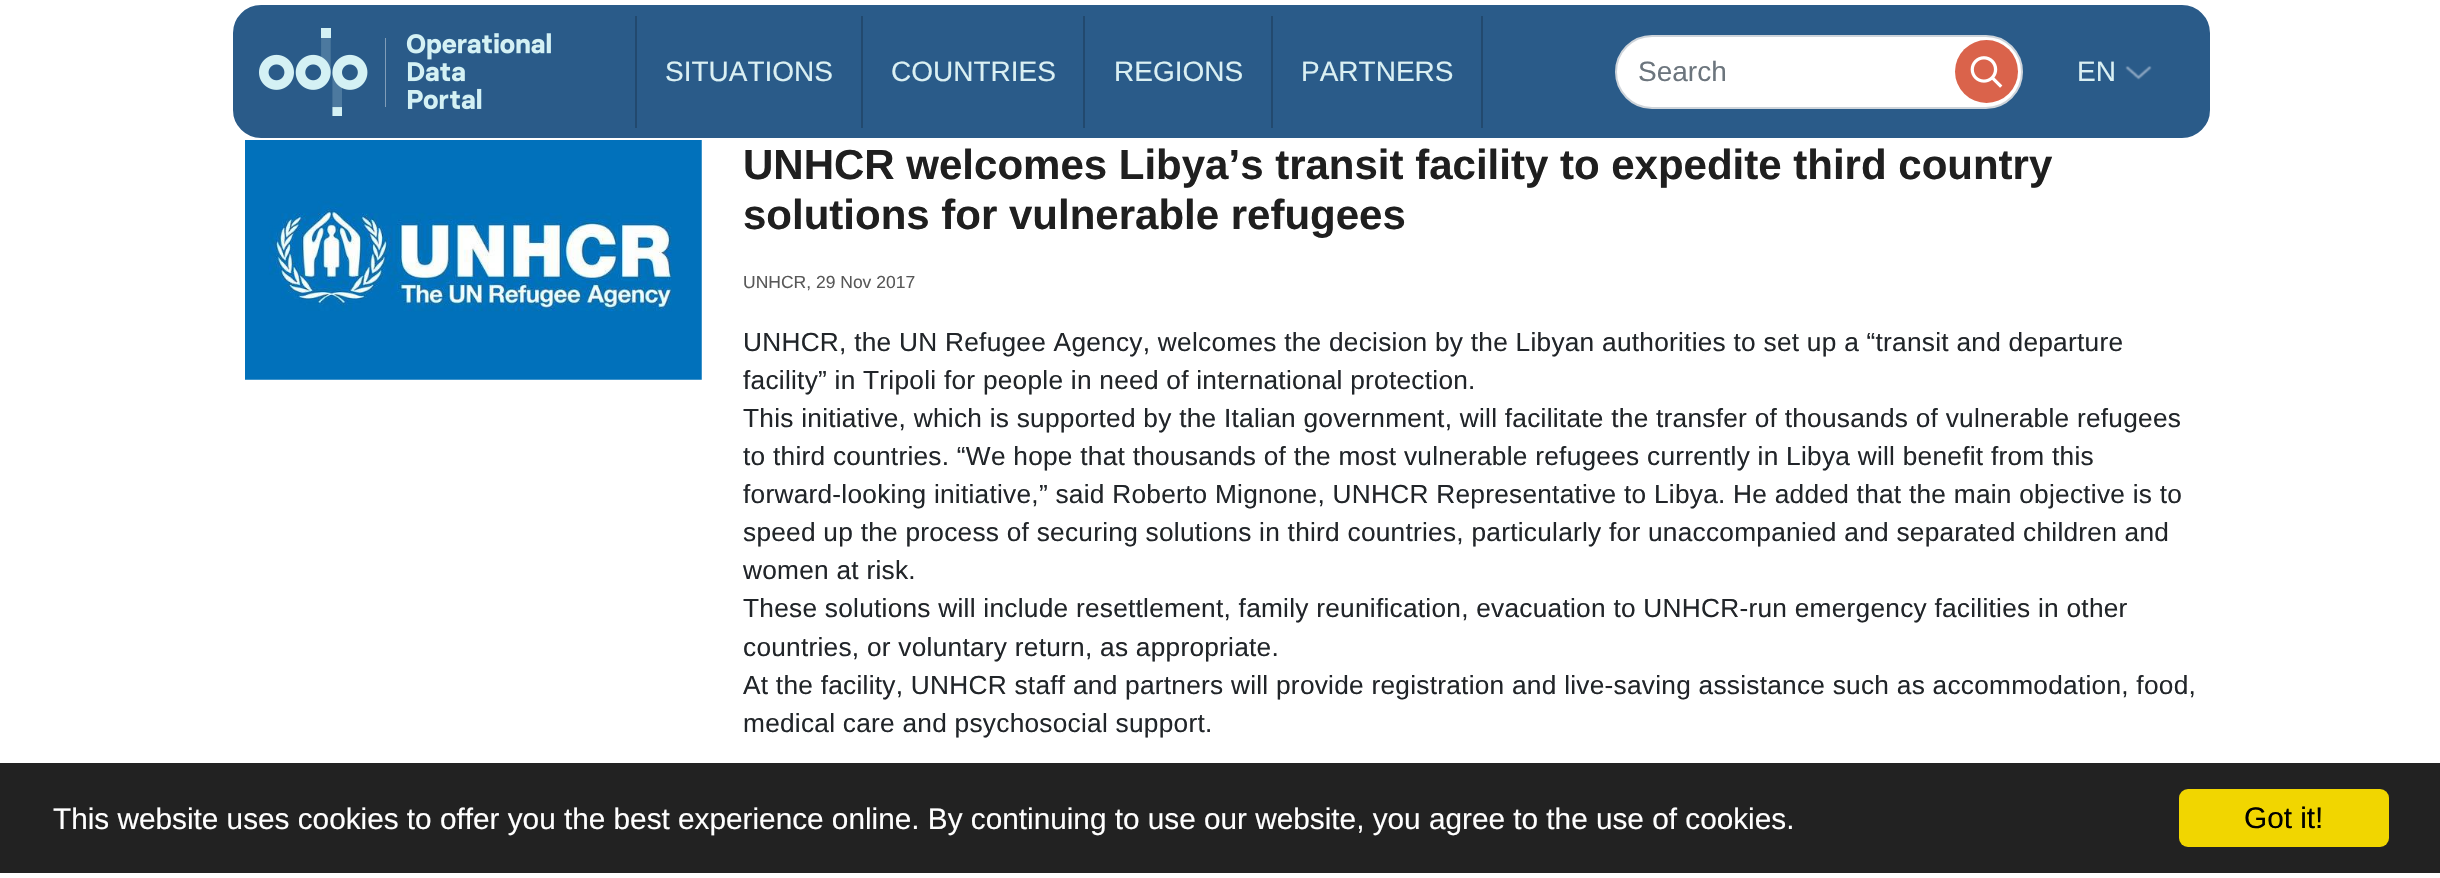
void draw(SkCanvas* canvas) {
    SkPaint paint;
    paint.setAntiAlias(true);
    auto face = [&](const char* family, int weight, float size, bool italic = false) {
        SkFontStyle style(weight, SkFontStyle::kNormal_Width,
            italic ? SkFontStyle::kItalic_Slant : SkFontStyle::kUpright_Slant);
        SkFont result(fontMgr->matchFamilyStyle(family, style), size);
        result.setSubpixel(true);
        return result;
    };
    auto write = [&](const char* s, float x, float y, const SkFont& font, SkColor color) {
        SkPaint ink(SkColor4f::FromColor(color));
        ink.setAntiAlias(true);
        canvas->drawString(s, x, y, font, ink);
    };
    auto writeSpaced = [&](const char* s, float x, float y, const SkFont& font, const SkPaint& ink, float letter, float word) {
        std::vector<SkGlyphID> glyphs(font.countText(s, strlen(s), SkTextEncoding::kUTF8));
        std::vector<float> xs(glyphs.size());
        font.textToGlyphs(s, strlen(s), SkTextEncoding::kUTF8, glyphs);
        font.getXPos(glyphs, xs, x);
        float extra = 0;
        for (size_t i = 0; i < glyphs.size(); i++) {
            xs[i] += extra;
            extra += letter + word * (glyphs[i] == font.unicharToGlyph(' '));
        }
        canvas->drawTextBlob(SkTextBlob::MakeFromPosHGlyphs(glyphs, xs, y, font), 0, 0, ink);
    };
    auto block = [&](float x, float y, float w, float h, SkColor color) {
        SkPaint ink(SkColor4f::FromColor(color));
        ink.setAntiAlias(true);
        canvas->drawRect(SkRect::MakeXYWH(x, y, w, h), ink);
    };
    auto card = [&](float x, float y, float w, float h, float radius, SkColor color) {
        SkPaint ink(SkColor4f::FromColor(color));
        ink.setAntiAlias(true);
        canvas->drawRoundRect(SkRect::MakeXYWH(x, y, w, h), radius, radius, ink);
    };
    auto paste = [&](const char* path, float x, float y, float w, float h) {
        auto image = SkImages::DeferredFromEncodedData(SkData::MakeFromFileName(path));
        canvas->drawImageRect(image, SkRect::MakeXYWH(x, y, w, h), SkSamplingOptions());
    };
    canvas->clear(SK_ColorWHITE);
    paint.setColor(SkColorSetRGB(42, 91, 137));
    canvas->drawRoundRect(SkRect::MakeXYWH(235.5f, 7.5f, 1972, 128), 25.5f, 25.5f, paint);
    paint.setStyle(SkPaint::kStroke_Style);
    paint.setStrokeWidth(5);
    canvas->drawRoundRect(SkRect::MakeXYWH(235.5f, 7.5f, 1972, 128), 25.5f, 25.5f, paint);
    paste("pic1.png", 259, 28, 292, 88);
    block(635, 16, 2, 112, SkColorSetRGB(34, 73, 110));
    auto kFont1 = face("Liberation Sans", 400, 28);
    write("SITUATIONS", 665, 81, kFont1, SkColorSetRGB(218, 240, 243));
    block(861, 16, 2, 112, SkColorSetRGB(34, 73, 110));
    write("COUNTRIES", 891, 81, kFont1, SkColorSetRGB(218, 240, 243));
    block(1083, 16, 2, 112, SkColorSetRGB(34, 73, 110));
    write("REGIONS", 1114, 81, kFont1, SkColorSetRGB(218, 240, 243));
    block(1481, 16, 2, 112, SkColorSetRGB(34, 73, 110));
    block(1271, 16, 2, 112, SkColorSetRGB(34, 73, 110));
    write("PARTNERS", 1301, 81, kFont1, SkColorSetRGB(218, 240, 243));
    paint.setStyle(SkPaint::kFill_Style);
    paint.setColor(SK_ColorWHITE);
    canvas->drawRoundRect(SkRect::MakeXYWH(1616, 36, 406, 72), 36, 36, paint);
    paint.setStyle(SkPaint::kStroke_Style);
    paint.setStrokeWidth(2);
    paint.setColor(SkColorSetRGB(206, 212, 218));
    canvas->drawRoundRect(SkRect::MakeXYWH(1616, 36, 406, 72), 36, 36, paint);
    write("Search", 1638, 81, kFont1, SkColorSetRGB(108, 117, 125));
    paint.setStyle(SkPaint::kFill_Style);
    paint.setColor(SkColorSetRGB(218, 99, 75));
    canvas->drawCircle(1986.5f, 71.5f, 31.5f, paint);
    paste("pic2.png", 1970, 56, 33, 32);
    write("EN", 2077, 81, kFont1, SkColorSetRGB(218, 240, 243));
    paste("pic3.png", 2125, 66, 27, 14);
    paste("pic4.png", 245, 140, 457, 240);
    auto kFont2 = face("Liberation Sans", 700, 42);
    write("UNHCR welcomes Libya’s transit facility to expedite third country", 743, 179, kFont2, SkColorSetRGB(31, 31, 31));
    write("solutions for vulnerable refugees", 743, 229, kFont2, SkColorSetRGB(31, 31, 31));
    auto kFont3 = face("Liberation Sans", 400, 17.5f);
    write("UNHCR, 29 Nov 2017", 743, 288, kFont3, SkColorSetRGB(88, 88, 88));
    auto kFont4 = face("Liberation Sans", 400, 26.25f);
    paint.setColor(SkColorSetRGB(33, 37, 41));
    writeSpaced("UNHCR, the UN Refugee Agency, welcomes the decision by the Libyan authorities to set up a “transit and departure", 743, 351, kFont4, paint, 0.26f, 0);
    writeSpaced("facility” in Tripoli for people in need of international protection.", 743, 389, kFont4, paint, 0.26f, 0);
    writeSpaced("This initiative, which is supported by the Italian government, will facilitate the transfer of thousands of vulnerable refugees", 743, 427, kFont4, paint, 0.26f, 0);
    writeSpaced("to third countries. “We hope that thousands of the most vulnerable refugees currently in Libya will benefit from this", 743, 465, kFont4, paint, 0.26f, 0);
    writeSpaced("forward-looking initiative,” said Roberto Mignone, UNHCR Representative to Libya. He added that the main objective is to", 743, 503, kFont4, paint, 0.26f, 0);
    writeSpaced("speed up the process of securing solutions in third countries, particularly for unaccompanied and separated children and", 743, 541, kFont4, paint, 0.26f, 0);
    writeSpaced("women at risk.", 743, 579, kFont4, paint, 0.26f, 0);
    writeSpaced("These solutions will include resettlement, family reunification, evacuation to UNHCR-run emergency facilities in other", 743, 617, kFont4, paint, 0.26f, 0);
    writeSpaced("countries, or voluntary return, as appropriate.", 743, 656, kFont4, paint, 0.26f, 0);
    writeSpaced("At the facility, UNHCR staff and partners will provide registration and live-saving assistance such as accommodation, food,", 743, 694, kFont4, paint, 0.26f, 0);
    writeSpaced("medical care and psychosocial support.", 743, 732, kFont4, paint, 0.26f, 0);
    block(0, 763, 2440, 110, SkColorSetRGB(34, 34, 34));
    auto kFont5 = face("Liberation Sans", 400, 29.75f);
    write("This website uses cookies to offer you the best experience online. By continuing to use our website, you agree to the use of cookies.", 53, 829, kFont5, SK_ColorWHITE);
    card(2179, 789, 210, 58, 9, SkColorSetRGB(241, 214, 0));
    write("Got it!", 2244, 828, kFont5, SK_ColorBLACK);
}
